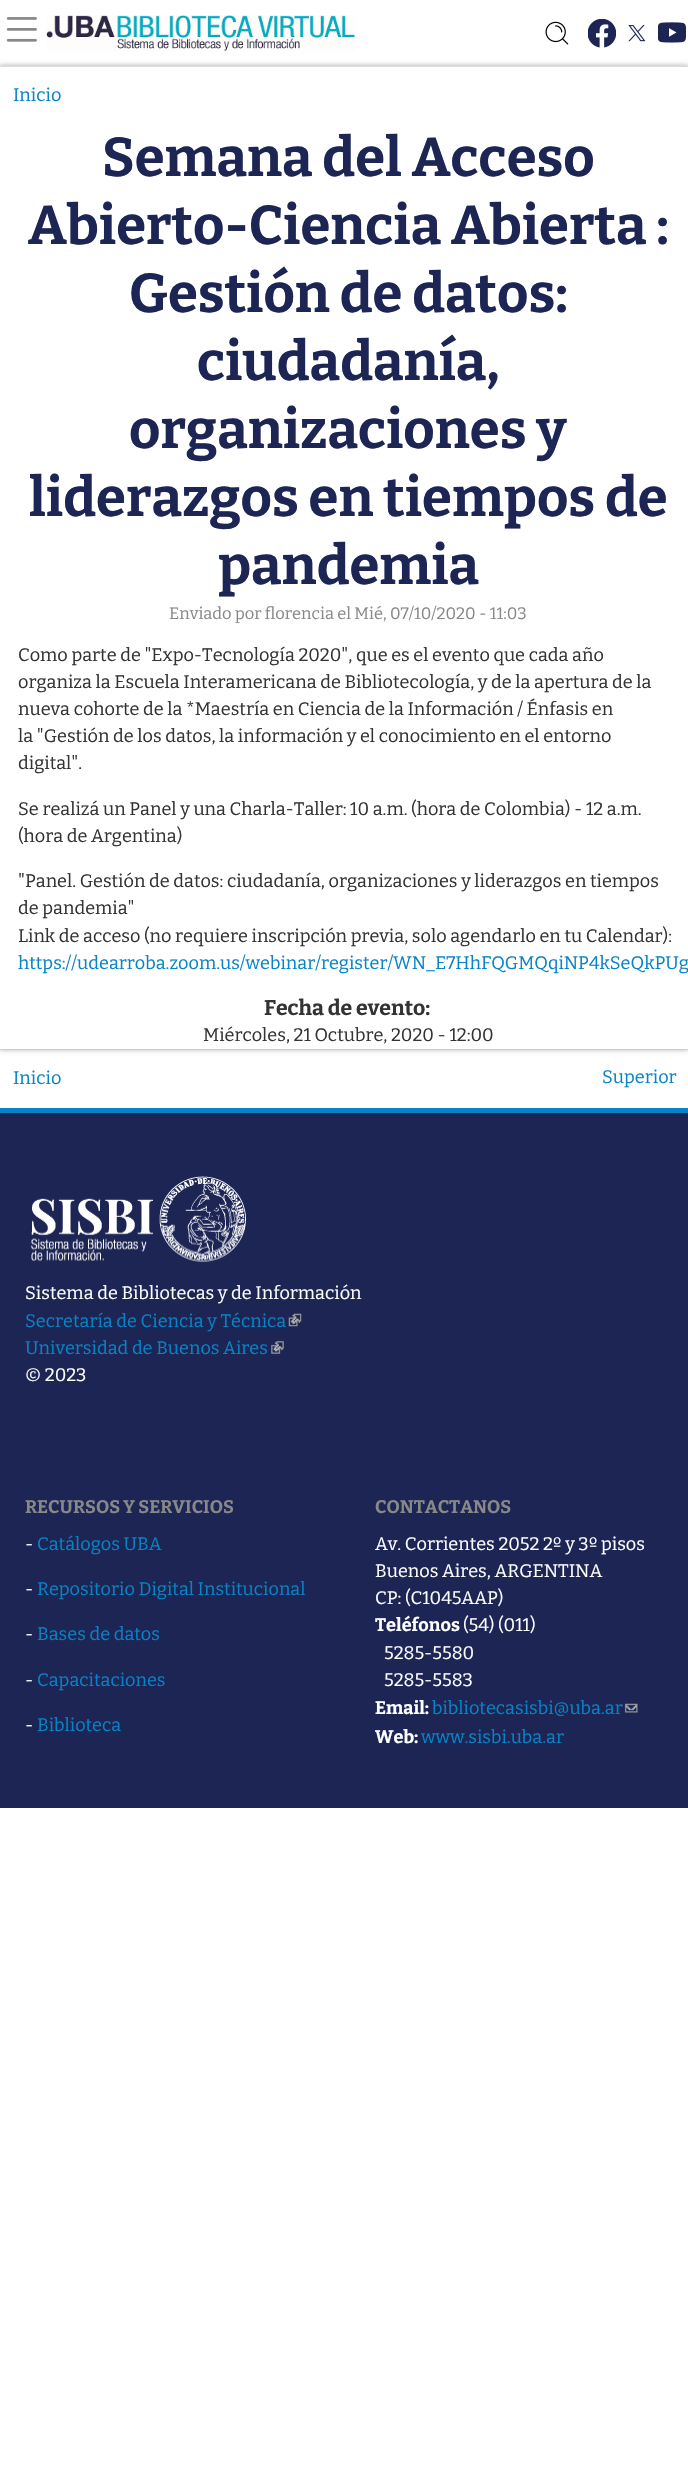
void draw(SkCanvas* canvas) {
    SkPaint paint;
    paint.setAntiAlias(true);
    auto face = [&](const char* family, int weight, float size, bool italic = false) {
        SkFontStyle style(weight, SkFontStyle::kNormal_Width,
            italic ? SkFontStyle::kItalic_Slant : SkFontStyle::kUpright_Slant);
        SkFont result(fontMgr->matchFamilyStyle(family, style), size);
        result.setSubpixel(true);
        return result;
    };
    auto write = [&](const char* s, float x, float y, const SkFont& font, SkColor color) {
        SkPaint ink(SkColor4f::FromColor(color));
        ink.setAntiAlias(true);
        canvas->drawString(s, x, y, font, ink);
    };
    auto block = [&](float x, float y, float w, float h, SkColor color) {
        SkPaint ink(SkColor4f::FromColor(color));
        ink.setAntiAlias(true);
        canvas->drawRect(SkRect::MakeXYWH(x, y, w, h), ink);
    };
    auto paste = [&](const char* path, float x, float y, float w, float h) {
        auto image = SkImages::DeferredFromEncodedData(SkData::MakeFromFileName(path));
        canvas->drawImageRect(image, SkRect::MakeXYWH(x, y, w, h), SkSamplingOptions());
    };
    canvas->clear(SK_ColorWHITE);
    paste("pic1.png", 6, 17, 31, 25);
    paste("pic2.png", 46, 15, 310, 36);
    paste("pic3.png", 545, 21, 24, 24);
    paste("pic4.png", 588, 19, 28, 29);
    paste("pic5.png", 628, 25, 18, 17);
    paste("pic6.png", 658, 22, 28, 21);
    block(0, 1049, 688, 1, SkColorSetRGB(221, 221, 221));
    paint.setColor(SkColorSetRGB(197, 197, 197));
    paint.setMaskFilter(SkMaskFilter::MakeBlur(kNormal_SkBlurStyle, 2.5f));
    canvas->drawRect(SkRect::MakeXYWH(-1, 66, 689, 983), paint);
    paint.setMaskFilter(nullptr);
    paint.setMaskFilter(SkMaskFilter::MakeBlur(kNormal_SkBlurStyle, 2.5f));
    canvas->drawRect(SkRect::MakeXYWH(0, 66, 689, 983), paint);
    paint.setMaskFilter(nullptr);
    block(0, 67, 688, 982, SK_ColorWHITE);
    block(0, 66, 688, 1, SkColorSetRGB(221, 221, 221));
    auto kFont1 = face("Bitter", 400, 18.1f);
    write("Inicio", 13, 101, kFont1, SkColorSetRGB(7, 131, 198));
    auto kFont2 = face("Bitter", 700, 54.4f);
    write("Semana del Acceso", 102, 176, kFont2, SkColorSetRGB(29, 37, 84));
    write("Abierto-Ciencia Abierta :", 28, 244, kFont2, SkColorSetRGB(29, 37, 84));
    write("Gestión de datos:", 129, 312, kFont2, SkColorSetRGB(29, 37, 84));
    write("ciudadanía,", 197, 380, kFont2, SkColorSetRGB(29, 37, 84));
    write("organizaciones y", 129, 448, kFont2, SkColorSetRGB(29, 37, 84));
    write("liderazgos en tiempos de", 29, 516, kFont2, SkColorSetRGB(29, 37, 84));
    write("pandemia", 218, 584, kFont2, SkColorSetRGB(29, 37, 84));
    auto kFont3 = face("Bitter", 400, 16.5f);
    write("Enviado por florencia el Mié, 07/10/2020 - 11:03", 169, 619, kFont3, SkColorSetRGB(136, 136, 136));
    write("Como parte de \"Expo-Tecnología 2020\", que es el evento que cada año", 18, 661, kFont1, SkColorSetRGB(51, 51, 51));
    write("organiza la Escuela Interamericana de Bibliotecología, y de la apertura de la", 18, 688, kFont1, SkColorSetRGB(51, 51, 51));
    write("nueva cohorte de la *Maestría en Ciencia de la Información / Énfasis en", 18, 715, kFont1, SkColorSetRGB(51, 51, 51));
    write("la \"Gestión de los datos, la información y el conocimiento en el entorno", 18, 742, kFont1, SkColorSetRGB(51, 51, 51));
    write("digital\".", 18, 769, kFont1, SkColorSetRGB(51, 51, 51));
    write("Se realizá un Panel y una Charla-Taller: 10 a.m. (hora de Colombia) - 12 a.m.", 18, 815, kFont1, SkColorSetRGB(51, 51, 51));
    write("(hora de Argentina)", 18, 842, kFont1, SkColorSetRGB(51, 51, 51));
    write("\"Panel. Gestión de datos: ciudadanía, organizaciones y liderazgos en tiempos", 18, 887, kFont1, SkColorSetRGB(51, 51, 51));
    write("de pandemia\"", 18, 914, kFont1, SkColorSetRGB(51, 51, 51));
    write("Link de acceso (no requiere inscripción previa, solo agendarlo en tu Calendar):", 18, 942, kFont1, SkColorSetRGB(51, 51, 51));
    write("https://udearroba.zoom.us/webinar/register/WN_E7HhFQGMQqiNP4kSeQkPUg", 18, 969, kFont1, SkColorSetRGB(7, 131, 198));
    auto kFont4 = face("Bitter", 700, 21.25f);
    write("Fecha de evento:", 264, 1015, kFont4, SkColorSetRGB(51, 51, 51));
    write("Miércoles, 21 Octubre, 2020 - 12:00", 203, 1041, kFont1, SkColorSetRGB(51, 51, 51));
    write("Inicio", 13, 1084, kFont1, SkColorSetRGB(7, 131, 198));
    write("Superior", 602, 1083, kFont1, SkColorSetRGB(7, 131, 198));
    block(0, 1113, 688, 695, SkColorSetRGB(29, 37, 84));
    block(0, 1108, 688, 5, SkColorSetRGB(7, 131, 198));
    paste("pic7.png", 31, 1176, 215, 86);
    write("Sistema de Bibliotecas y de Información", 25, 1299, kFont1, SK_ColorWHITE);
    write("Secretaría de Ciencia y Técnica", 25, 1327, kFont1, SkColorSetRGB(7, 131, 198));
    paste("pic8.png", 288, 1313, 14, 14);
    write("Universidad de Buenos Aires", 25, 1354, kFont1, SkColorSetRGB(7, 131, 198));
    paste("pic9.png", 271, 1341, 13, 13);
    write("© 2023", 25, 1381, kFont1, SK_ColorWHITE);
    auto kFont5 = face("Bitter", 700, 18.1f);
    write("RECURSOS Y SERVICIOS", 25, 1513, kFont5, SkColorSetRGB(136, 136, 136));
    write("-", 25, 1550, kFont1, SK_ColorWHITE);
    write("Catálogos UBA", 37, 1550, kFont1, SkColorSetRGB(7, 131, 198));
    write("-", 25, 1595, kFont1, SK_ColorWHITE);
    write("Repositorio Digital Institucional", 37, 1595, kFont1, SkColorSetRGB(7, 131, 198));
    write("-", 25, 1640, kFont1, SK_ColorWHITE);
    write("Bases de datos", 37, 1640, kFont1, SkColorSetRGB(7, 131, 198));
    write("-", 25, 1686, kFont1, SK_ColorWHITE);
    write("Capacitaciones", 37, 1686, kFont1, SkColorSetRGB(7, 131, 198));
    write("-", 25, 1731, kFont1, SK_ColorWHITE);
    write("Biblioteca", 37, 1731, kFont1, SkColorSetRGB(7, 131, 198));
    write("CONTACTANOS", 375, 1513, kFont5, SkColorSetRGB(136, 136, 136));
    write("Av. Corrientes 2052 2º y 3º pisos", 375, 1550, kFont1, SK_ColorWHITE);
    write("Buenos Aires, ARGENTINA", 375, 1577, kFont1, SK_ColorWHITE);
    write("CP: (C1045AAP)", 375, 1604, kFont1, SK_ColorWHITE);
    write("Teléfonos", 375, 1631, kFont5, SK_ColorWHITE);
    write("(54) (011)", 463, 1631, kFont1, SK_ColorWHITE);
    write("5285-5580", 384, 1659, kFont1, SK_ColorWHITE);
    write("5285-5583", 384, 1686, kFont1, SK_ColorWHITE);
    write("Email:", 375, 1714, kFont5, SK_ColorWHITE);
    write("bibliotecasisbi@uba.ar", 432, 1714, kFont1, SkColorSetRGB(7, 131, 198));
    paste("pic10.png", 624, 1703, 14, 10);
    write("Web:", 375, 1743, kFont5, SK_ColorWHITE);
    write("www.sisbi.uba.ar", 421, 1743, kFont1, SkColorSetRGB(7, 131, 198));
}
